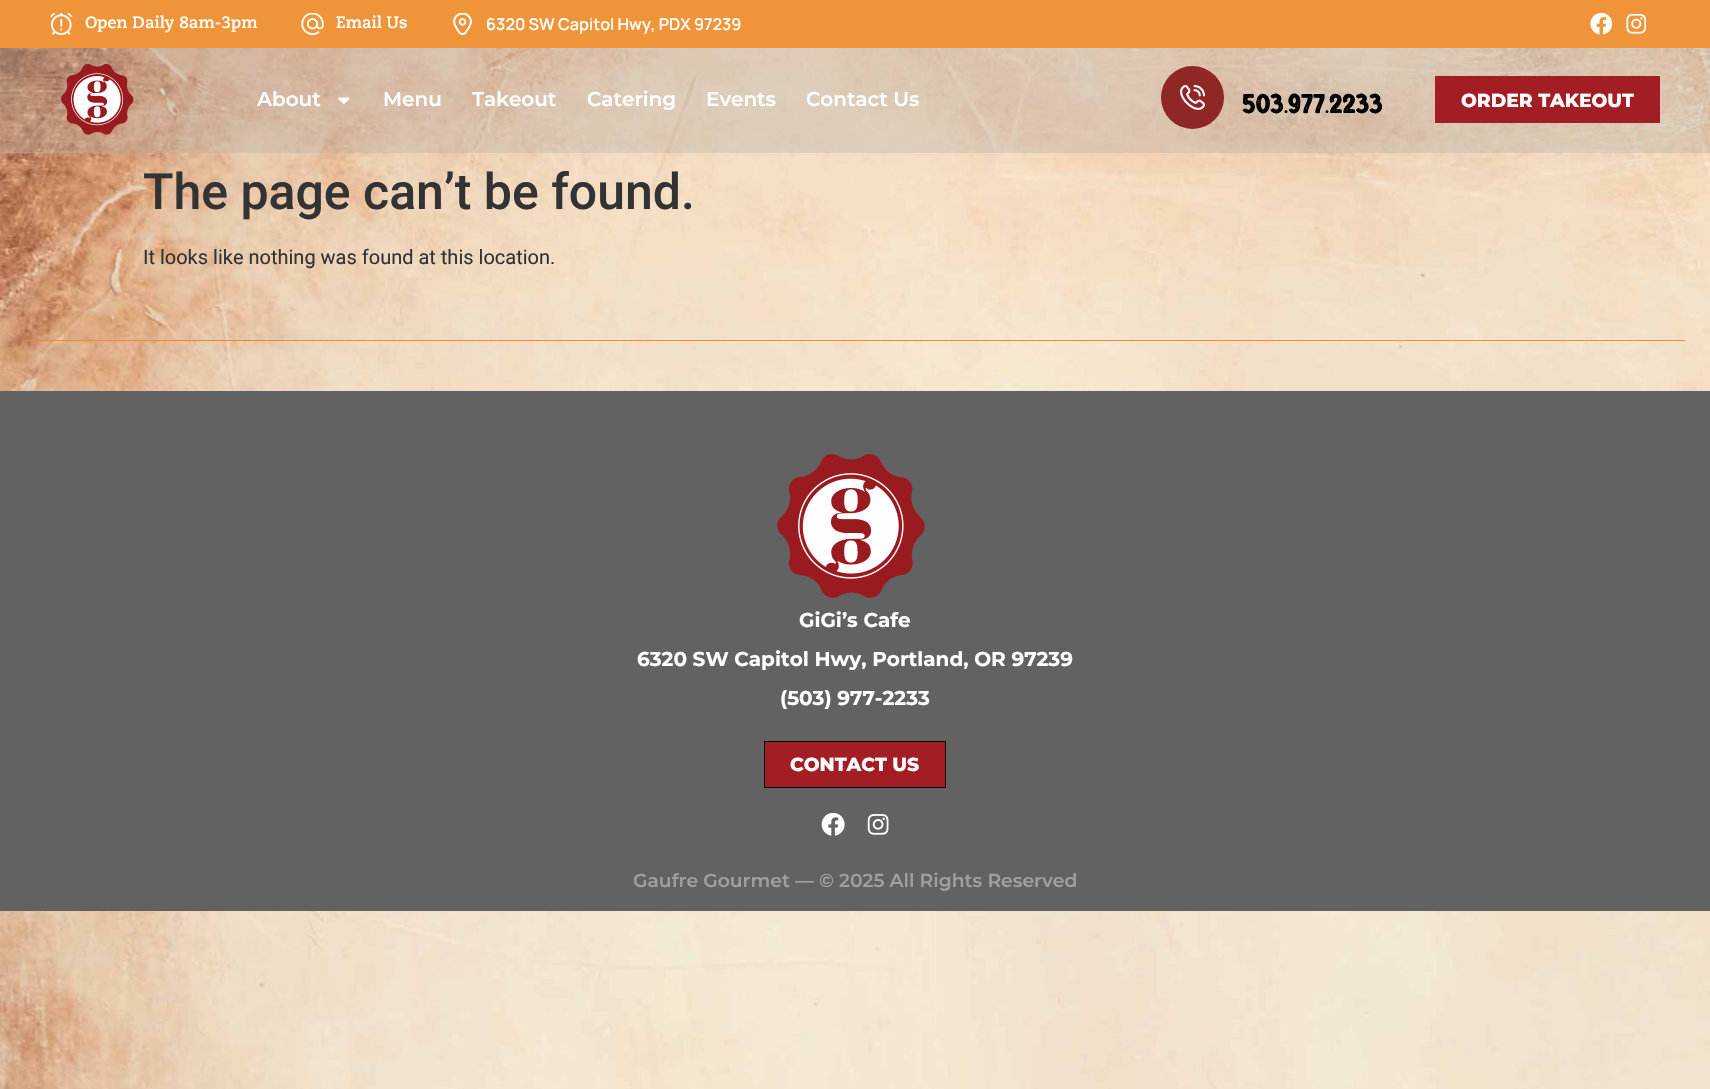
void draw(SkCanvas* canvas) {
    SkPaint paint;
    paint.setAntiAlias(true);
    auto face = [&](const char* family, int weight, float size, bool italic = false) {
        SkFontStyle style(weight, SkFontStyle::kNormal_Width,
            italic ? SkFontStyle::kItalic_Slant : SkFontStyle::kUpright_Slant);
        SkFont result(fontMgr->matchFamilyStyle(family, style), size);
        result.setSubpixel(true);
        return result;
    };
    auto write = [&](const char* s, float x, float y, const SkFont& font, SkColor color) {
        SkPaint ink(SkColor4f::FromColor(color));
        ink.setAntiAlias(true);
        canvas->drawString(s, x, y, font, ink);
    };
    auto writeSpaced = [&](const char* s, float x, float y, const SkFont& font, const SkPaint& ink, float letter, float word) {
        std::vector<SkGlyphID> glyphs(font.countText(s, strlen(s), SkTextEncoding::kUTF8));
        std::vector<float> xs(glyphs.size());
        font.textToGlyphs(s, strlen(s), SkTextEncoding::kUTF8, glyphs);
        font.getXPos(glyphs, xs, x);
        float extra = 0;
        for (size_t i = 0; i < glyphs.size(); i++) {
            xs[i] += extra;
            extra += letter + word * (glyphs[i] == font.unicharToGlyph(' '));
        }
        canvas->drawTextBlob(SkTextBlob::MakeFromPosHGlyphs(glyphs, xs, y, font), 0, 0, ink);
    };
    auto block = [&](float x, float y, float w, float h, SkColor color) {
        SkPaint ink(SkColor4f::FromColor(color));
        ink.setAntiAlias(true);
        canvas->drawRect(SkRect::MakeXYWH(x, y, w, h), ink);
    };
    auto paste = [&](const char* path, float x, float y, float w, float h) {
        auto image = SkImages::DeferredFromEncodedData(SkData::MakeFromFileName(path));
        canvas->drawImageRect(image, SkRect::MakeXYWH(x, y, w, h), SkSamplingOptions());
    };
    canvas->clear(SK_ColorWHITE);
    paste("pic1.png", 0, 48, 1710, 1041);
    block(0, 48, 1710, 105, SkColorSetARGB(31, 0, 0, 0));
    block(0, 0, 1710, 48, SkColorSetRGB(239, 148, 56));
    paste("pic2.png", 50, 13, 23, 22);
    auto kFont1 = face("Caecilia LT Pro", 700, 16.25f);
    write("Open Daily 8am-3pm", 85, 28, kFont1, SK_ColorWHITE);
    paste("pic3.png", 301, 13, 23, 22);
    write("Email Us", 336, 28, kFont1, SK_ColorWHITE);
    paste("pic4.png", 453, 13, 19, 22);
    auto kFont2 = face("Manrope", 600, 16.25f);
    write("6320 SW Capitol Hwy, PDX 97239", 486, 30, kFont2, SK_ColorWHITE);
    paste("pic5.png", 1590, 13, 23, 22);
    paste("pic6.png", 1626, 14, 21, 20);
    block(0, 48, 1710, 105, SkColorSetARGB(48, 255, 255, 255));
    paste("pic7.png", 61, 64, 73, 71);
    auto kFont3 = face("Montserrat", 600, 20);
    write("About", 257, 106, kFont3, SK_ColorWHITE);
    paste("pic8.png", 338, 97, 12, 7);
    write("Menu", 383, 106, kFont3, SK_ColorWHITE);
    write("Takeout", 472, 106, kFont3, SK_ColorWHITE);
    write("Catering", 587, 106, kFont3, SK_ColorWHITE);
    write("Events", 706, 106, kFont3, SK_ColorWHITE);
    write("Contact Us", 806, 106, kFont3, SK_ColorWHITE);
    paint.setColor(SkColorSetRGB(142, 39, 37));
    canvas->drawCircle(1192.5f, 97.5f, 31.5f, paint);
    paste("pic9.png", 1180, 85, 25, 25);
    auto kFont4 = face("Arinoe", 400, 36);
    paint.setColor(SK_ColorBLACK);
    writeSpaced("503.977.2233", 1242, 113, kFont4, paint, -0.4f, 0);
    block(1435, 76, 225, 47, SkColorSetRGB(163, 30, 36));
    auto kFont5 = face("Montserrat", 800, 18.75f);
    write("ORDER TAKEOUT", 1461, 107, kFont5, SK_ColorWHITE);
    auto kFont6 = face("Roboto", 500, 50);
    write("The page can’t be found.", 143, 209, kFont6, SkColorSetRGB(51, 51, 51));
    auto kFont7 = face("Roboto", 400, 20);
    write("It looks like nothing was found at this location.", 143, 264, kFont7, SkColorSetRGB(51, 51, 51));
    block(25, 340, 1660, 1, SkColorSetRGB(228, 141, 65));
    block(0, 391, 1710, 520, SkColorSetRGB(98, 98, 98));
    paste("pic10.png", 777, 454, 148, 144);
    auto kFont8 = face("Montserrat", 700, 20);
    write("GiGi’s Cafe", 799, 627, kFont8, SK_ColorWHITE);
    write("6320 SW Capitol Hwy, Portland, OR 97239", 637, 666, kFont8, SK_ColorWHITE);
    write("(503) 977-2233", 780, 705, kFont8, SK_ColorWHITE);
    paint.setColor(SkColorSetRGB(163, 30, 36));
    canvas->drawRect(SkRect::MakeXYWH(764.5f, 741.5f, 181, 46), paint);
    paint.setStyle(SkPaint::kStroke_Style);
    paint.setStrokeWidth(1);
    paint.setColor(SK_ColorBLACK);
    canvas->drawRect(SkRect::MakeXYWH(764.5f, 741.5f, 181, 46), paint);
    write("CONTACT US", 790, 771, kFont5, SK_ColorWHITE);
    paste("pic11.png", 821, 813, 24, 23);
    paste("pic12.png", 867, 814, 22, 21);
    auto kFont9 = face("Montserrat", 600, 18.75f);
    write("Gaufre Gourmet — © 2025 All Rights Reserved", 633, 887, kFont9, SkColorSetRGB(159, 159, 159));
}
